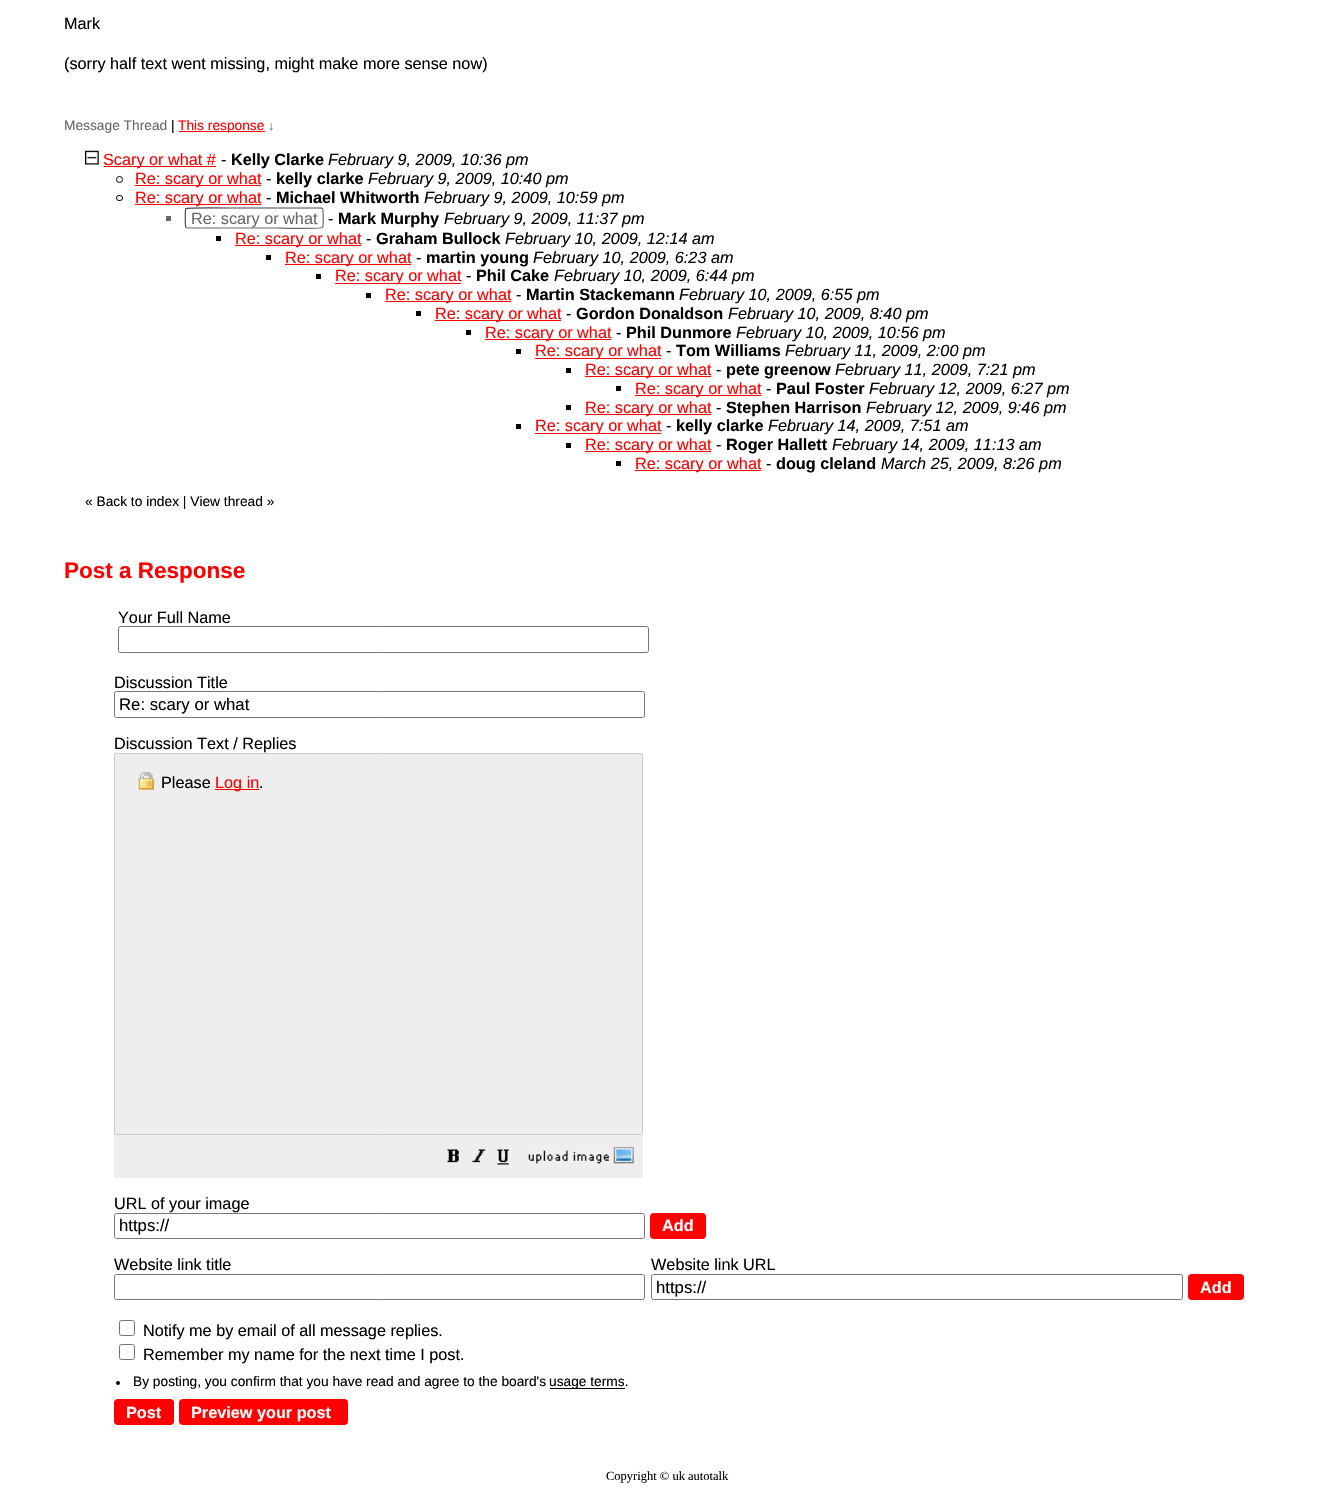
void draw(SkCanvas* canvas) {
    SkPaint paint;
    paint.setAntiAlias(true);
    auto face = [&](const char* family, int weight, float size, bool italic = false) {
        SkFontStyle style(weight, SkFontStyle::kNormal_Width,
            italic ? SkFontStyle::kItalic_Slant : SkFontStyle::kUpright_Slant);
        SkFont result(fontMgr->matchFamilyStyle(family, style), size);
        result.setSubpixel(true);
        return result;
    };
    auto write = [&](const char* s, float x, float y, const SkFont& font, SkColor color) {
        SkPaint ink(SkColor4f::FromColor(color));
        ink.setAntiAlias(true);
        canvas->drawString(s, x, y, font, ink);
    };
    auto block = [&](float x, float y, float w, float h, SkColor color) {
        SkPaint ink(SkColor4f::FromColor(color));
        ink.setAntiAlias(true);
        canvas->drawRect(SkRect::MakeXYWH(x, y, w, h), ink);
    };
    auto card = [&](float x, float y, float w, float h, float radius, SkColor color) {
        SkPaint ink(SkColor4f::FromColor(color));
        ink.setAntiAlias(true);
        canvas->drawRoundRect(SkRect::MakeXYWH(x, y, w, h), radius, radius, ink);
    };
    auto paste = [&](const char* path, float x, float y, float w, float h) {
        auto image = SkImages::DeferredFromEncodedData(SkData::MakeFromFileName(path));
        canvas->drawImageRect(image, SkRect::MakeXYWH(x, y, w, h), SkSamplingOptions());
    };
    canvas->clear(SK_ColorWHITE);
    auto kFont1 = face("Liberation Sans", 400, 16.25f);
    write("Mark", 64, 29, kFont1, SK_ColorBLACK);
    write("(sorry half text went missing, might make more sense now)", 64, 69, kFont1, SK_ColorBLACK);
    auto kFont2 = face("Liberation Sans", 400, 13.75f);
    write("Message Thread", 64, 130, kFont2, SkColorSetRGB(103, 103, 103));
    write("|", 171, 130, kFont2, SK_ColorBLACK);
    block(179, 131, 86, 1, SkColorSetRGB(255, 0, 0));
    write("This response", 178, 130, kFont2, SkColorSetRGB(255, 0, 0));
    auto kFont3 = face("Liberation Sans", 400, 12.5f);
    write("↓", 268, 130, kFont3, SkColorSetRGB(103, 103, 103));
    paste("pic1.png", 85, 150, 14, 15);
    block(104, 166, 112, 1, SkColorSetRGB(255, 0, 0));
    write("Scary or what #", 103, 165, kFont1, SkColorSetRGB(255, 0, 0));
    write("-", 221, 165, kFont1, SK_ColorBLACK);
    auto kFont4 = face("Liberation Sans", 700, 16.25f);
    write("Kelly Clarke", 231, 165, kFont4, SK_ColorBLACK);
    auto kFont5 = face("Liberation Sans", 400, 16.25f, true);
    write("February 9, 2009, 10:36 pm", 328, 165, kFont5, SK_ColorBLACK);
    paint.setStyle(SkPaint::kStroke_Style);
    paint.setStrokeWidth(1);
    paint.setColor(SK_ColorBLACK);
    canvas->drawCircle(119.5f, 179.5f, 3, paint);
    block(135, 185, 126, 1, SkColorSetRGB(255, 0, 0));
    write("Re: scary or what", 135, 184, kFont1, SkColorSetRGB(255, 0, 0));
    write("-", 266, 184, kFont1, SK_ColorBLACK);
    write("kelly clarke", 276, 184, kFont4, SK_ColorBLACK);
    write("February 9, 2009, 10:40 pm", 368, 184, kFont5, SK_ColorBLACK);
    canvas->drawRoundRect(SkRect::MakeXYWH(116.5f, 195.5f, 6, 5), 2.5f, 2.5f, paint);
    block(135, 204, 126, 1, SkColorSetRGB(255, 0, 0));
    write("Re: scary or what", 135, 203, kFont1, SkColorSetRGB(255, 0, 0));
    write("-", 266, 203, kFont1, SK_ColorBLACK);
    write("Michael Whitworth", 276, 203, kFont4, SK_ColorBLACK);
    write("February 9, 2009, 10:59 pm", 424, 203, kFont5, SK_ColorBLACK);
    block(166, 216, 5, 5, SkColorSetRGB(103, 103, 103));
    paint.setStrokeWidth(1.2f);
    paint.setColor(SkColorSetRGB(103, 103, 103));
    canvas->drawPath(SkPathBuilder().moveTo(322.5f, 208.5f).cubicTo(323.5f, 209.5f, 323.5f, 226.5f, 322.5f, 227.5f).cubicTo(321.5f, 229, 279.5f, 228, 276.5f, 228).lineTo(187.5f, 228).lineTo(186, 227.5f).detach(), paint);
    paint.setColor(SkColorSetRGB(69, 69, 69));
    canvas->drawPath(SkPathBuilder().moveTo(186, 227.5f).cubicTo(185, 226.5f, 185, 209.5f, 186, 208.5f).cubicTo(187.5f, 207.5f, 229.5f, 208, 232, 208).lineTo(321, 208).lineTo(322.5f, 208.5f).detach(), paint);
    write("Re: scary or what", 191, 224, kFont1, SkColorSetRGB(103, 103, 103));
    write("-", 328, 224, kFont1, SK_ColorBLACK);
    write("Mark Murphy", 338, 224, kFont4, SK_ColorBLACK);
    write("February 9, 2009, 11:37 pm", 444, 224, kFont5, SK_ColorBLACK);
    block(216, 236, 5, 5, SK_ColorBLACK);
    block(235, 245, 126, 1, SkColorSetRGB(255, 0, 0));
    write("Re: scary or what", 235, 244, kFont1, SkColorSetRGB(255, 0, 0));
    write("-", 366, 244, kFont1, SK_ColorBLACK);
    write("Graham Bullock", 376, 244, kFont4, SK_ColorBLACK);
    write("February 10, 2009, 12:14 am", 505, 244, kFont5, SK_ColorBLACK);
    block(266, 255, 5, 5, SK_ColorBLACK);
    block(285, 264, 126, 1, SkColorSetRGB(255, 0, 0));
    write("Re: scary or what", 285, 263, kFont1, SkColorSetRGB(255, 0, 0));
    write("-", 416, 263, kFont1, SK_ColorBLACK);
    write("martin young", 426, 263, kFont4, SK_ColorBLACK);
    write("February 10, 2009, 6:23 am", 533, 263, kFont5, SK_ColorBLACK);
    block(316, 274, 5, 5, SK_ColorBLACK);
    block(335, 283, 126, 1, SkColorSetRGB(255, 0, 0));
    write("Re: scary or what", 335, 281, kFont1, SkColorSetRGB(255, 0, 0));
    write("-", 466, 281, kFont1, SK_ColorBLACK);
    write("Phil Cake", 476, 281, kFont4, SK_ColorBLACK);
    write("February 10, 2009, 6:44 pm", 554, 281, kFont5, SK_ColorBLACK);
    block(366, 293, 5, 5, SK_ColorBLACK);
    block(385, 301, 126, 1, SkColorSetRGB(255, 0, 0));
    write("Re: scary or what", 385, 300, kFont1, SkColorSetRGB(255, 0, 0));
    write("-", 516, 300, kFont1, SK_ColorBLACK);
    write("Martin Stackemann", 526, 300, kFont4, SK_ColorBLACK);
    write("February 10, 2009, 6:55 pm", 679, 300, kFont5, SK_ColorBLACK);
    block(416, 311, 5, 5, SK_ColorBLACK);
    block(435, 320, 126, 1, SkColorSetRGB(255, 0, 0));
    write("Re: scary or what", 435, 319, kFont1, SkColorSetRGB(255, 0, 0));
    write("-", 566, 319, kFont1, SK_ColorBLACK);
    write("Gordon Donaldson", 576, 319, kFont4, SK_ColorBLACK);
    write("February 10, 2009, 8:40 pm", 728, 319, kFont5, SK_ColorBLACK);
    block(466, 330, 5, 5, SK_ColorBLACK);
    block(485, 339, 126, 1, SkColorSetRGB(255, 0, 0));
    write("Re: scary or what", 485, 338, kFont1, SkColorSetRGB(255, 0, 0));
    write("-", 616, 338, kFont1, SK_ColorBLACK);
    write("Phil Dunmore", 626, 338, kFont4, SK_ColorBLACK);
    write("February 10, 2009, 10:56 pm", 736, 338, kFont5, SK_ColorBLACK);
    block(516, 349, 5, 5, SK_ColorBLACK);
    block(535, 358, 126, 1, SkColorSetRGB(255, 0, 0));
    write("Re: scary or what", 535, 356, kFont1, SkColorSetRGB(255, 0, 0));
    write("-", 666, 356, kFont1, SK_ColorBLACK);
    write("Tom Williams", 676, 356, kFont4, SK_ColorBLACK);
    write("February 11, 2009, 2:00 pm", 785, 356, kFont5, SK_ColorBLACK);
    block(566, 368, 5, 5, SK_ColorBLACK);
    block(585, 376, 126, 1, SkColorSetRGB(255, 0, 0));
    write("Re: scary or what", 585, 375, kFont1, SkColorSetRGB(255, 0, 0));
    write("-", 716, 375, kFont1, SK_ColorBLACK);
    write("pete greenow", 726, 375, kFont4, SK_ColorBLACK);
    write("February 11, 2009, 7:21 pm", 835, 375, kFont5, SK_ColorBLACK);
    block(616, 386, 5, 5, SK_ColorBLACK);
    block(635, 395, 126, 1, SkColorSetRGB(255, 0, 0));
    write("Re: scary or what", 635, 394, kFont1, SkColorSetRGB(255, 0, 0));
    write("-", 766, 394, kFont1, SK_ColorBLACK);
    write("Paul Foster", 776, 394, kFont4, SK_ColorBLACK);
    write("February 12, 2009, 6:27 pm", 869, 394, kFont5, SK_ColorBLACK);
    block(566, 405, 5, 5, SK_ColorBLACK);
    block(585, 414, 126, 1, SkColorSetRGB(255, 0, 0));
    write("Re: scary or what", 585, 413, kFont1, SkColorSetRGB(255, 0, 0));
    write("-", 716, 413, kFont1, SK_ColorBLACK);
    write("Stephen Harrison", 726, 413, kFont4, SK_ColorBLACK);
    write("February 12, 2009, 9:46 pm", 866, 413, kFont5, SK_ColorBLACK);
    block(516, 424, 5, 5, SK_ColorBLACK);
    block(535, 433, 126, 1, SkColorSetRGB(255, 0, 0));
    write("Re: scary or what", 535, 431, kFont1, SkColorSetRGB(255, 0, 0));
    write("-", 666, 431, kFont1, SK_ColorBLACK);
    write("kelly clarke", 676, 431, kFont4, SK_ColorBLACK);
    write("February 14, 2009, 7:51 am", 768, 431, kFont5, SK_ColorBLACK);
    block(566, 443, 5, 5, SK_ColorBLACK);
    block(585, 451, 126, 1, SkColorSetRGB(255, 0, 0));
    write("Re: scary or what", 585, 450, kFont1, SkColorSetRGB(255, 0, 0));
    write("-", 716, 450, kFont1, SK_ColorBLACK);
    write("Roger Hallett", 726, 450, kFont4, SK_ColorBLACK);
    write("February 14, 2009, 11:13 am", 832, 450, kFont5, SK_ColorBLACK);
    block(616, 461, 5, 5, SK_ColorBLACK);
    block(635, 470, 126, 1, SkColorSetRGB(255, 0, 0));
    write("Re: scary or what", 635, 469, kFont1, SkColorSetRGB(255, 0, 0));
    write("-", 766, 469, kFont1, SK_ColorBLACK);
    write("doug cleland", 776, 469, kFont4, SK_ColorBLACK);
    write("March 25, 2009, 8:26 pm", 881, 469, kFont5, SK_ColorBLACK);
    write("« Back to index | View thread »", 85, 506, kFont2, SK_ColorBLACK);
    auto kFont6 = face("Liberation Sans", 700, 22.5f);
    write("Post a Response", 64, 578, kFont6, SkColorSetRGB(255, 0, 0));
    write("Your Full Name", 118, 623, kFont1, SK_ColorBLACK);
    paint.setStrokeWidth(1);
    paint.setColor(SkColorSetRGB(118, 118, 118));
    canvas->drawRoundRect(SkRect::MakeXYWH(118.5f, 626.5f, 530, 26), 2, 2, paint);
    write("Discussion Title", 114, 688, kFont1, SK_ColorBLACK);
    canvas->drawRoundRect(SkRect::MakeXYWH(114.5f, 691.5f, 530, 26), 2, 2, paint);
    auto kFont7 = face("Liberation Sans", 400, 16.75f);
    write("Re: scary or what", 119, 710, kFont7, SK_ColorBLACK);
    write("Discussion Text / Replies", 114, 749, kFont1, SK_ColorBLACK);
    block(114, 753, 529, 425, SkColorSetRGB(238, 238, 238));
    paint.setColor(SkColorSetRGB(202, 202, 202));
    canvas->drawRoundRect(SkRect::MakeXYWH(114.5f, 753.5f, 528, 381), 2, 2, paint);
    paste("pic2.png", 138, 772, 16, 18);
    write("Please", 161, 788, kFont1, SK_ColorBLACK);
    block(215, 789, 44, 1, SkColorSetRGB(255, 0, 0));
    write("Log in", 215, 788, kFont1, SkColorSetRGB(255, 0, 0));
    write(".", 259, 788, kFont1, SK_ColorBLACK);
    paste("pic3.png", 447, 1149, 12, 14);
    paste("pic4.png", 472, 1149, 14, 14);
    paste("pic5.png", 497, 1149, 12, 16);
    paste("pic6.png", 528, 1146, 106, 18);
    write("URL of your image", 114, 1209, kFont1, SK_ColorBLACK);
    paint.setColor(SkColorSetRGB(118, 118, 118));
    canvas->drawRoundRect(SkRect::MakeXYWH(114.5f, 1213.5f, 530, 25), 2, 2, paint);
    write("https://", 119, 1231, kFont7, SK_ColorBLACK);
    card(650, 1213, 56, 26, 4, SkColorSetRGB(255, 0, 0));
    write("Add", 662, 1231, kFont4, SK_ColorWHITE);
    write("Website link title", 114, 1270, kFont1, SK_ColorBLACK);
    canvas->drawRoundRect(SkRect::MakeXYWH(114.5f, 1274.5f, 530, 25), 2, 2, paint);
    write("Website link URL", 651, 1270, kFont1, SK_ColorBLACK);
    canvas->drawRoundRect(SkRect::MakeXYWH(651.5f, 1274.5f, 531, 25), 2, 2, paint);
    write("https://", 656, 1293, kFont7, SK_ColorBLACK);
    card(1188, 1274, 56, 26, 4, SkColorSetRGB(255, 0, 0));
    write("Add", 1200, 1293, kFont4, SK_ColorWHITE);
    canvas->drawRoundRect(SkRect::MakeXYWH(119.5f, 1320.5f, 15, 15), 2, 2, paint);
    write("Notify me by email of all message replies.", 143, 1336, kFont1, SK_ColorBLACK);
    canvas->drawRoundRect(SkRect::MakeXYWH(119.5f, 1344.5f, 15, 15), 2, 2, paint);
    write("Remember my name for the next time I post.", 143, 1360, kFont1, SK_ColorBLACK);
    paint.setStyle(SkPaint::kFill_Style);
    paint.setColor(SK_ColorBLACK);
    canvas->drawCircle(118, 1383, 2, paint);
    write("By posting, you confirm that you have read and agree to the board's", 133, 1386, kFont2, SK_ColorBLACK);
    block(550, 1388, 75, 1, SK_ColorBLACK);
    write("usage terms.", 549, 1386, kFont2, SK_ColorBLACK);
    card(114, 1399, 60, 26, 4, SkColorSetRGB(255, 0, 0));
    write("Post", 126, 1418, kFont4, SK_ColorWHITE);
    card(179, 1399, 169, 26, 4, SkColorSetRGB(255, 0, 0));
    write("Preview your post", 191, 1418, kFont4, SK_ColorWHITE);
    auto kFont8 = face("Liberation Serif", 400, 12.5f);
    write("Copyright © uk autotalk", 606, 1480, kFont8, SK_ColorBLACK);
}
